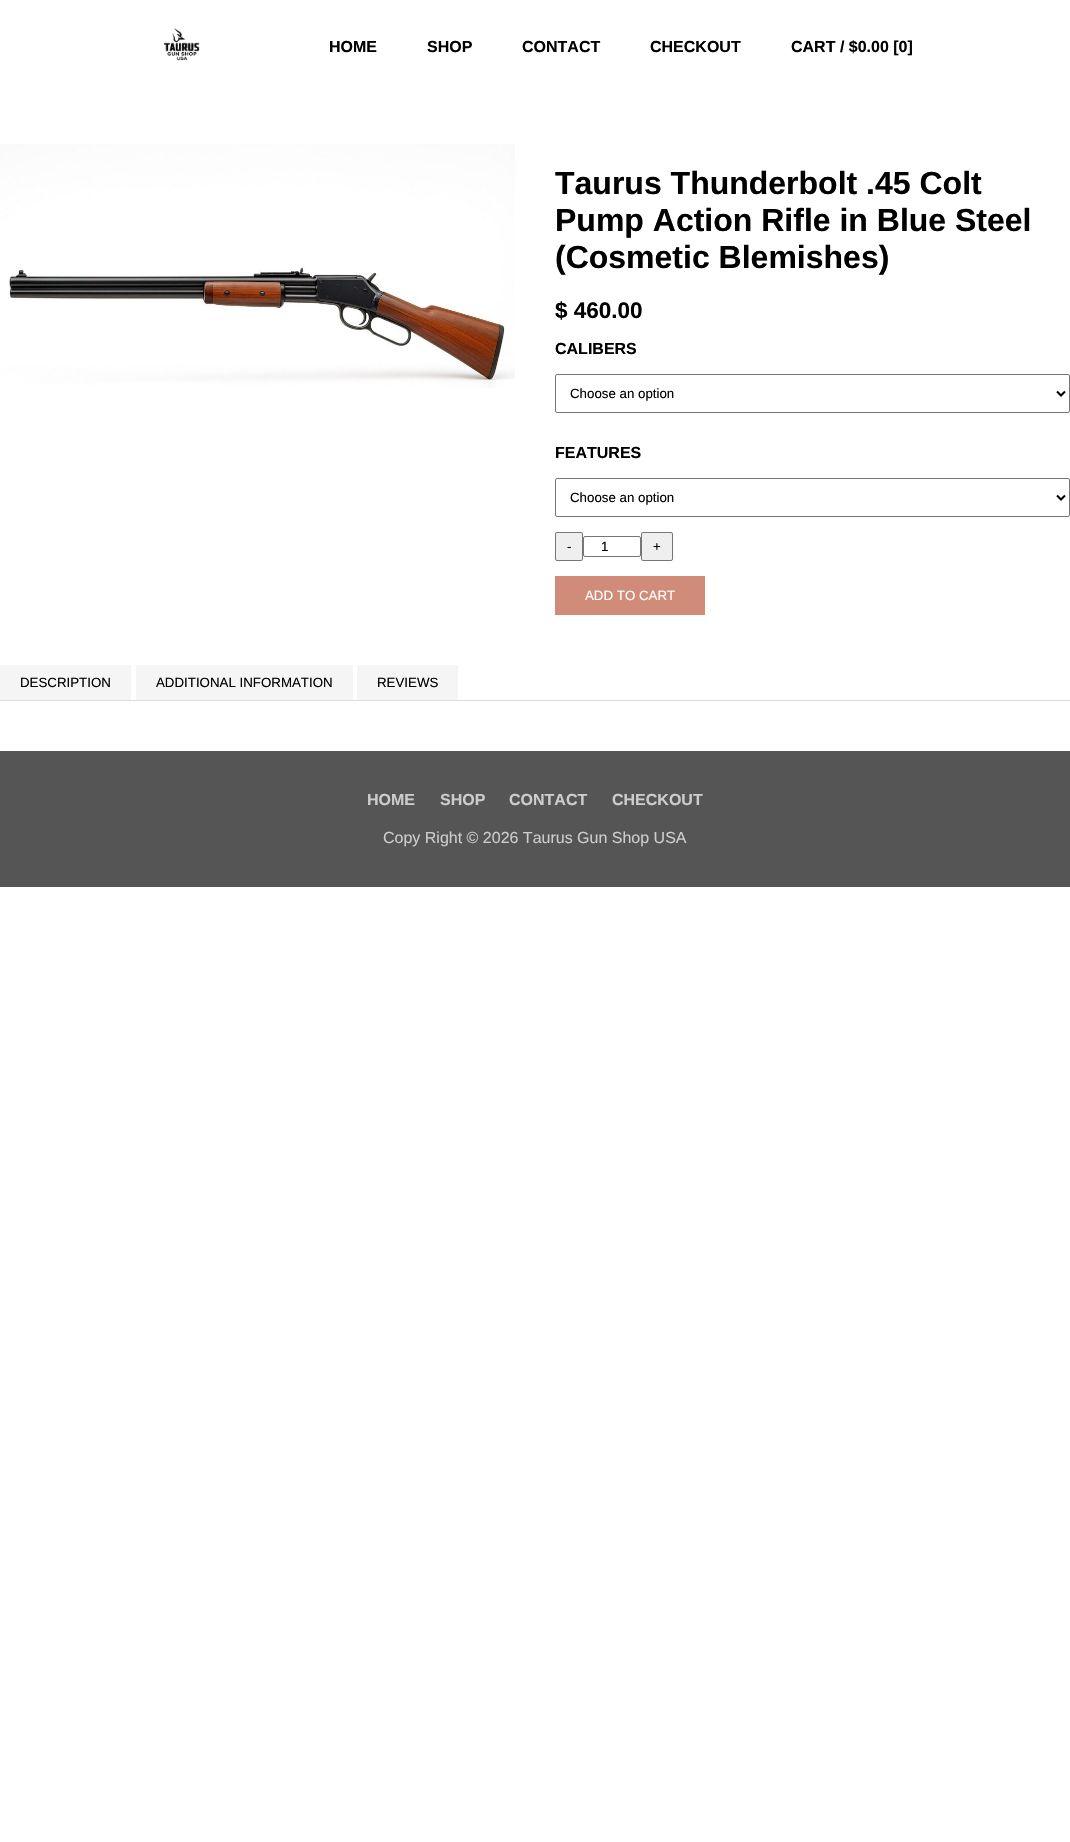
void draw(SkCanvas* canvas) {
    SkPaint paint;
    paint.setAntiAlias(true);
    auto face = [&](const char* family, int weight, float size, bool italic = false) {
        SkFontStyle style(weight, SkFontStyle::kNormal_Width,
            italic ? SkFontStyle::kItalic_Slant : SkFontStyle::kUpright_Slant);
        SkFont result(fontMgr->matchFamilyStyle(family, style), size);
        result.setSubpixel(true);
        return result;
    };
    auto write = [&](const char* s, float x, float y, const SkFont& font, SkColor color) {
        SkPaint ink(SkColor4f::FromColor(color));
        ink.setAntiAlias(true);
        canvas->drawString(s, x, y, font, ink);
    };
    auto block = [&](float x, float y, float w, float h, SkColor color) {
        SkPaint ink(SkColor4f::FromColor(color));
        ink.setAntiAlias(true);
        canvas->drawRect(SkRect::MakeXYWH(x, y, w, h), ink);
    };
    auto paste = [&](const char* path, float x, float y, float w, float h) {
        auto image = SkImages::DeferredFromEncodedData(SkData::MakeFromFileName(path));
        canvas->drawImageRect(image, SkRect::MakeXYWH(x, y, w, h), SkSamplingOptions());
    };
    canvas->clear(SK_ColorWHITE);
    paste("pic1.png", 164, 28, 36, 33);
    auto kFont1 = face("Liberation Sans", 700, 16);
    write("HOME", 329, 52, kFont1, SK_ColorBLACK);
    write("SHOP", 427, 52, kFont1, SK_ColorBLACK);
    write("CONTACT", 522, 52, kFont1, SK_ColorBLACK);
    write("CHECKOUT", 650, 52, kFont1, SK_ColorBLACK);
    write("CART / $0.00 [0]", 791, 52, kFont1, SK_ColorBLACK);
    paste("pic2.png", 0, 144, 515, 244);
    auto kFont2 = face("Liberation Sans", 700, 32);
    write("Taurus Thunderbolt .45 Colt", 555, 194, kFont2, SK_ColorBLACK);
    write("Pump Action Rifle in Blue Steel", 555, 231, kFont2, SK_ColorBLACK);
    write("(Cosmetic Blemishes)", 555, 268, kFont2, SK_ColorBLACK);
    auto kFont3 = face("Liberation Sans", 700, 22.5f);
    write("$ 460.00", 555, 318, kFont3, SK_ColorBLACK);
    write("CALIBERS", 555, 354, kFont1, SK_ColorBLACK);
    paint.setStyle(SkPaint::kStroke_Style);
    paint.setStrokeWidth(1);
    paint.setColor(SkColorSetRGB(118, 118, 118));
    canvas->drawRoundRect(SkRect::MakeXYWH(555.5f, 374.5f, 514, 38), 1.5f, 1.5f, paint);
    paint.setStrokeWidth(2);
    paint.setColor(SK_ColorBLACK);
    canvas->drawPath(SkPathBuilder().moveTo(1057, 391.5f).lineTo(1061, 395.5f).lineTo(1065, 391.5f).detach(), paint);
    auto kFont4 = face("Liberation Sans", 400, 13.3f);
    write("Choose an option", 570, 398, kFont4, SK_ColorBLACK);
    write("FEATURES", 555, 458, kFont1, SK_ColorBLACK);
    paint.setStrokeWidth(1);
    paint.setColor(SkColorSetRGB(118, 118, 118));
    canvas->drawRoundRect(SkRect::MakeXYWH(555.5f, 478.5f, 514, 38), 1.5f, 1.5f, paint);
    paint.setStrokeWidth(2);
    paint.setColor(SK_ColorBLACK);
    canvas->drawPath(SkPathBuilder().moveTo(1057, 495.5f).lineTo(1061, 499.5f).lineTo(1065, 495.5f).detach(), paint);
    write("Choose an option", 570, 502, kFont4, SK_ColorBLACK);
    paint.setStyle(SkPaint::kFill_Style);
    paint.setColor(SkColorSetRGB(239, 239, 239));
    canvas->drawRoundRect(SkRect::MakeXYWH(555.5f, 532.5f, 27, 28), 1.5f, 1.5f, paint);
    paint.setStyle(SkPaint::kStroke_Style);
    paint.setStrokeWidth(1);
    paint.setColor(SkColorSetRGB(118, 118, 118));
    canvas->drawRoundRect(SkRect::MakeXYWH(555.5f, 532.5f, 27, 28), 1.5f, 1.5f, paint);
    write("-", 567, 551, kFont4, SK_ColorBLACK);
    canvas->drawRoundRect(SkRect::MakeXYWH(583.5f, 536.5f, 57, 20), 1.5f, 1.5f, paint);
    write("1", 601, 551, kFont4, SK_ColorBLACK);
    paint.setStyle(SkPaint::kFill_Style);
    paint.setColor(SkColorSetRGB(239, 239, 239));
    canvas->drawRoundRect(SkRect::MakeXYWH(641.5f, 532.5f, 31, 28), 1.5f, 1.5f, paint);
    paint.setStyle(SkPaint::kStroke_Style);
    paint.setColor(SkColorSetRGB(118, 118, 118));
    canvas->drawRoundRect(SkRect::MakeXYWH(641.5f, 532.5f, 31, 28), 1.5f, 1.5f, paint);
    write("+", 653, 551, kFont4, SK_ColorBLACK);
    block(555, 576, 150, 39, SkColorSetRGB(208, 140, 121));
    write("ADD TO CART", 585, 600, kFont4, SK_ColorWHITE);
    block(0, 700, 1070, 1, SkColorSetRGB(221, 221, 221));
    block(0, 665, 131, 35, SkColorSetRGB(245, 245, 245));
    write("DESCRIPTION", 20, 687, kFont4, SK_ColorBLACK);
    block(136, 665, 217, 35, SkColorSetRGB(245, 245, 245));
    write("ADDITIONAL INFORMATION", 156, 687, kFont4, SK_ColorBLACK);
    block(357, 665, 101, 35, SkColorSetRGB(245, 245, 245));
    write("REVIEWS", 377, 687, kFont4, SK_ColorBLACK);
    block(0, 751, 1070, 136, SkColorSetRGB(85, 85, 85));
    write("HOME", 367, 805, kFont1, SkColorSetRGB(204, 204, 204));
    write("SHOP", 440, 805, kFont1, SkColorSetRGB(204, 204, 204));
    write("CONTACT", 509, 805, kFont1, SkColorSetRGB(204, 204, 204));
    write("CHECKOUT", 612, 805, kFont1, SkColorSetRGB(204, 204, 204));
    auto kFont5 = face("Liberation Sans", 400, 16);
    write("Copy Right © 2026 Taurus Gun Shop USA", 383, 843, kFont5, SkColorSetRGB(204, 204, 204));
}
